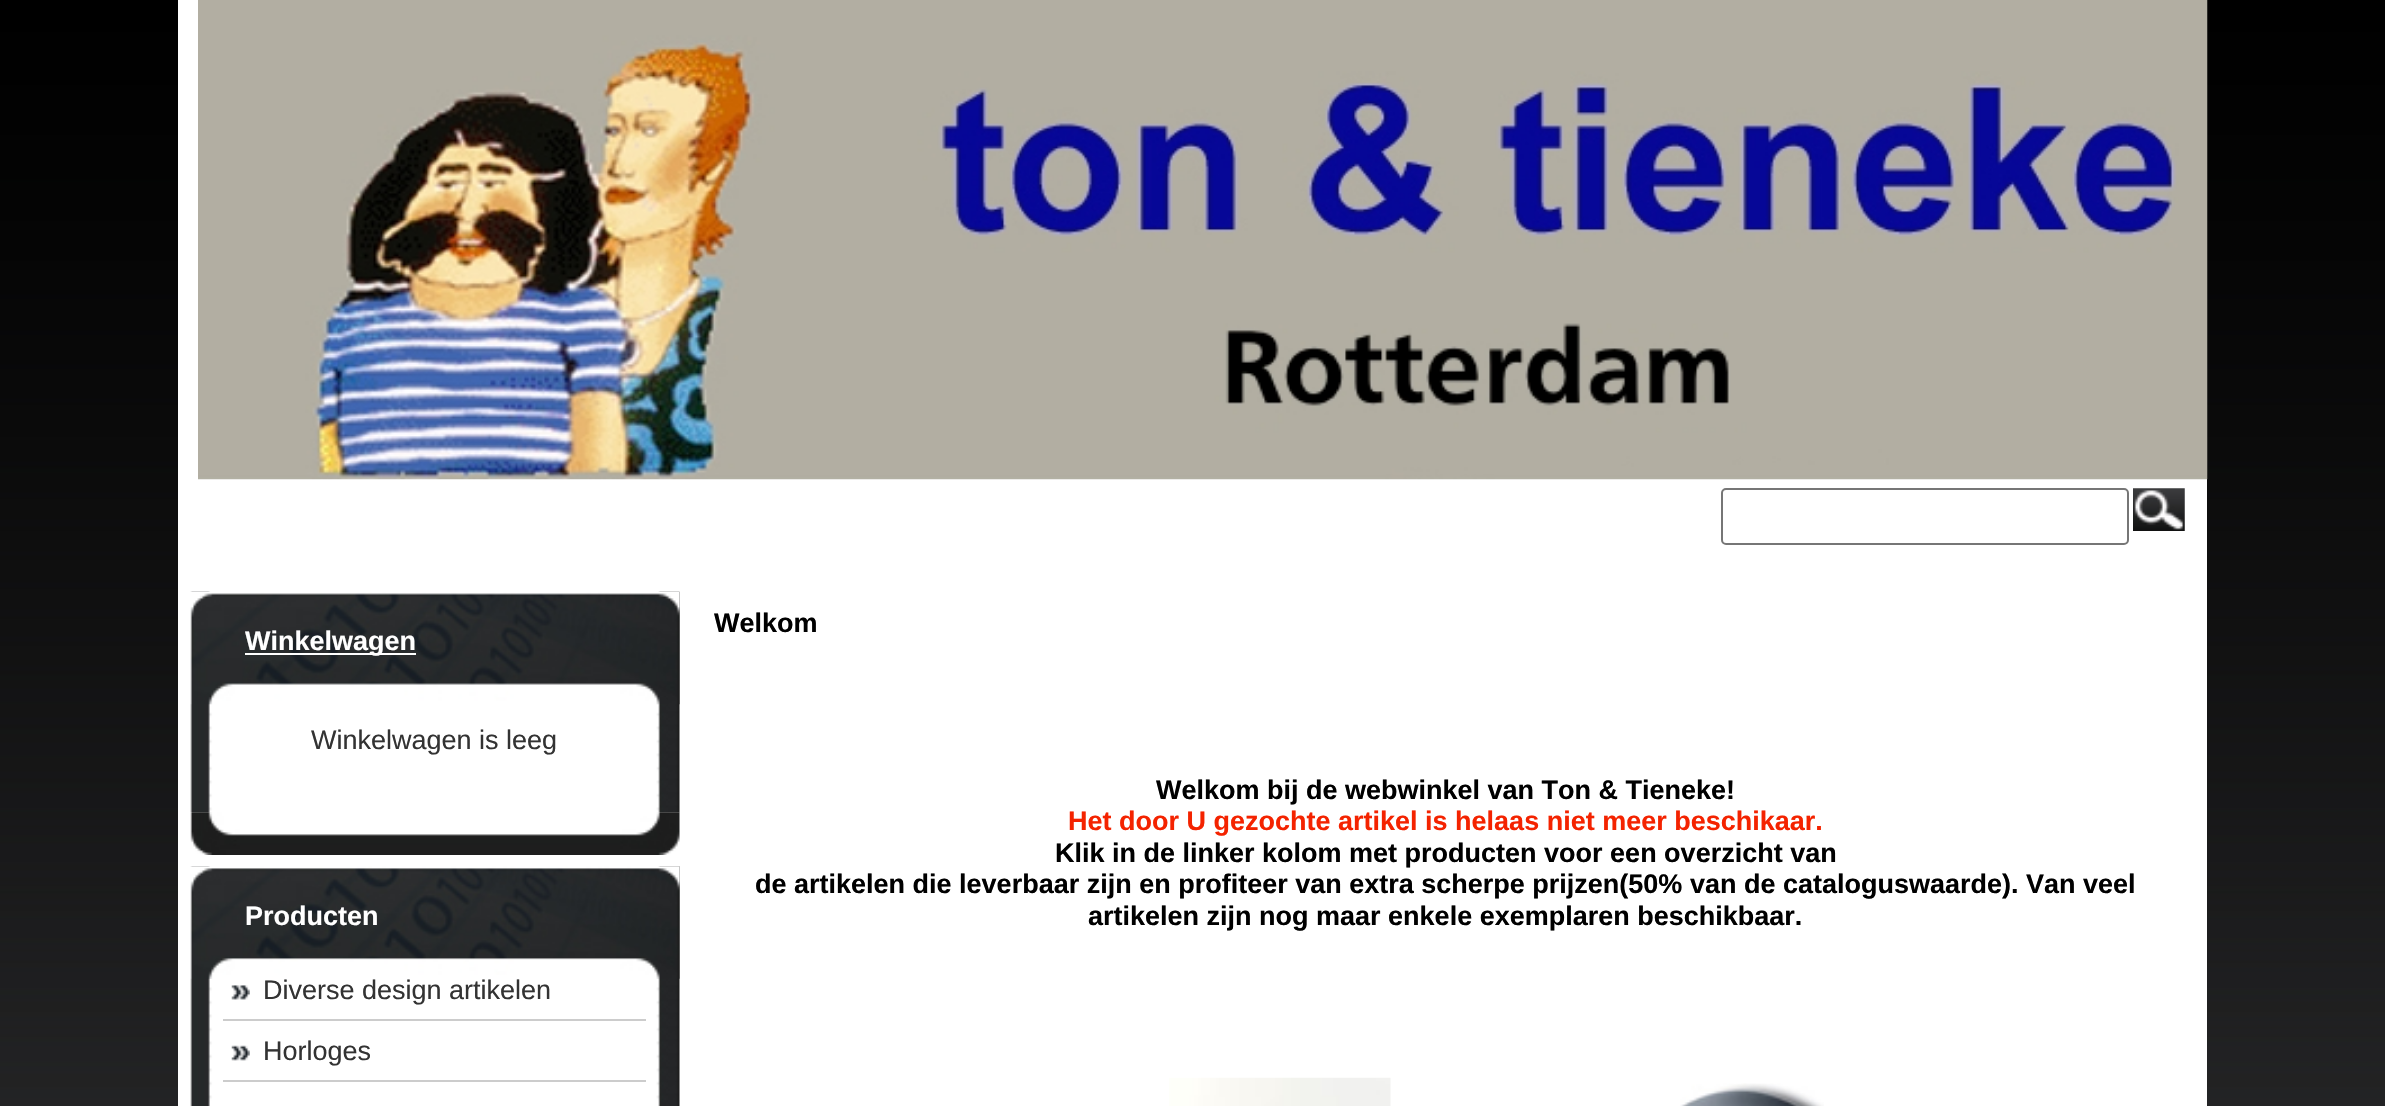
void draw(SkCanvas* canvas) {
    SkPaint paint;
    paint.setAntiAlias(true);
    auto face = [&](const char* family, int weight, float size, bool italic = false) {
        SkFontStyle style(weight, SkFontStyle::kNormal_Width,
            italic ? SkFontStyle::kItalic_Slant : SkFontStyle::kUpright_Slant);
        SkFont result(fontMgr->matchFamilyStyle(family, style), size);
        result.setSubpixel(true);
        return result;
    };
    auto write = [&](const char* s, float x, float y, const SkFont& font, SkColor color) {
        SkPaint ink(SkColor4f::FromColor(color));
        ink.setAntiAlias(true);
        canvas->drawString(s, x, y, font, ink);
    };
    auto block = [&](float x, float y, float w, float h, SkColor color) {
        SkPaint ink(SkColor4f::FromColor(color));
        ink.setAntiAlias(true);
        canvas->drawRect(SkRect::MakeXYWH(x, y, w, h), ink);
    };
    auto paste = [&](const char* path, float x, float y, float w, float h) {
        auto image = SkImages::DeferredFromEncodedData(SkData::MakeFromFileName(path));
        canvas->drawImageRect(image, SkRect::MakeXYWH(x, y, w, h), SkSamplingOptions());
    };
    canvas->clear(SK_ColorWHITE);
    paste("pic1.png", 0, 0, 2385, 1106);
    block(178, 0, 2029, 1106, SK_ColorWHITE);
    paste("pic2.png", 198, 0, 2010, 480);
    paint.setStyle(SkPaint::kStroke_Style);
    paint.setStrokeWidth(2);
    paint.setColor(SkColorSetRGB(118, 118, 118));
    canvas->drawRoundRect(SkRect::MakeXYWH(1722, 489, 406, 55), 4, 4, paint);
    paste("pic3.png", 2133, 488, 52, 43);
    paste("pic4.png", 190, 591, 490, 222);
    paste("pic5.png", 190, 591, 490, 114);
    block(245, 653, 171, 2, SK_ColorWHITE);
    auto kFont1 = face("Liberation Sans", 700, 27);
    write("Winkelwagen", 245, 650, kFont1, SK_ColorWHITE);
    auto kFont2 = face("Liberation Sans", 400, 27);
    write("Winkelwagen is leeg", 311, 749, kFont2, SkColorSetRGB(51, 51, 51));
    paste("pic6.png", 190, 812, 490, 43);
    paste("pic7.png", 190, 866, 490, 240);
    paste("pic8.png", 190, 866, 490, 113);
    write("Producten", 245, 925, kFont1, SK_ColorWHITE);
    block(223, 1019, 423, 2, SkColorSetRGB(204, 204, 204));
    paste("pic9.png", 231, 985, 19, 15);
    write("Diverse design artikelen", 263, 999, kFont2, SkColorSetRGB(51, 51, 51));
    block(223, 1080, 423, 2, SkColorSetRGB(204, 204, 204));
    paste("pic10.png", 231, 1045, 19, 16);
    write("Horloges", 263, 1060, kFont2, SkColorSetRGB(51, 51, 51));
    write("Welkom", 714, 632, kFont1, SK_ColorBLACK);
    write("Welkom bij de webwinkel van Ton & Tieneke!", 1156, 799, kFont1, SK_ColorBLACK);
    write("Het door U gezochte artikel is helaas niet meer beschikaar.", 1068, 830, kFont1, SkColorSetRGB(244, 35, 0));
    write("Klik in de linker kolom met producten voor een overzicht van", 1055, 862, kFont1, SK_ColorBLACK);
    write("de artikelen die leverbaar zijn en profiteer van extra scherpe prijzen(50% van de cataloguswaarde). Van veel", 755, 893, kFont1, SK_ColorBLACK);
    write("artikelen zijn nog maar enkele exemplaren beschikbaar.", 1088, 925, kFont1, SK_ColorBLACK);
    paste("pic11.png", 1169, 1077, 222, 29);
    paste("pic12.png", 1680, 1083, 144, 23);
}
